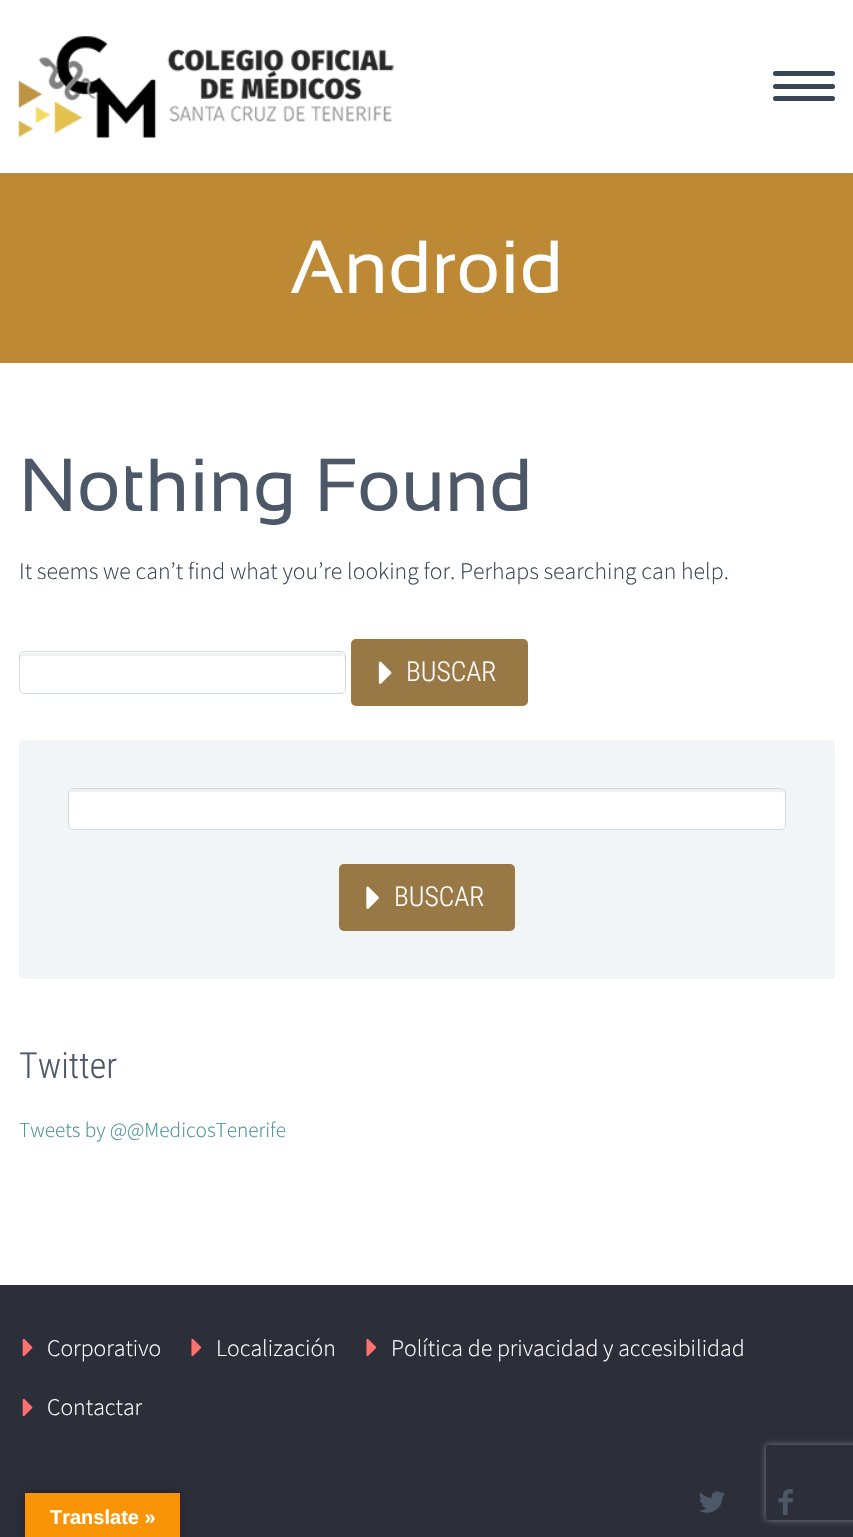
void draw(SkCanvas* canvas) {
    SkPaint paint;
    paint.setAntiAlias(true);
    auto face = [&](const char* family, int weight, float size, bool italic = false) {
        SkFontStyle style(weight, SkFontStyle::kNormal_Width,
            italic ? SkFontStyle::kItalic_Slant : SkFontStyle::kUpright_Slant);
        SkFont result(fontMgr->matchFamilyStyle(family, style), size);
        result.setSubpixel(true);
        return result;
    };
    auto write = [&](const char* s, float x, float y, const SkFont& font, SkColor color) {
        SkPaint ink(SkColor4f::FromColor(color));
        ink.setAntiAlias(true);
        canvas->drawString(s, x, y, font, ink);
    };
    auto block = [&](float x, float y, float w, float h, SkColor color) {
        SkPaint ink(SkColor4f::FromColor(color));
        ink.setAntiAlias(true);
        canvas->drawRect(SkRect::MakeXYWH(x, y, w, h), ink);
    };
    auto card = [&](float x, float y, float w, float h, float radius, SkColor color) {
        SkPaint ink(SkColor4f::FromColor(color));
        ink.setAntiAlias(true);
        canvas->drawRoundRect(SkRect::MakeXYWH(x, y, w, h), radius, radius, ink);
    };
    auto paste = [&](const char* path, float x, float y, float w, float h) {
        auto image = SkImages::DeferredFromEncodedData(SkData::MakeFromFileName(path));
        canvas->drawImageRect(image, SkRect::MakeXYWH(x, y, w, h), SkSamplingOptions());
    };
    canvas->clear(SK_ColorWHITE);
    paste("pic1.png", 18, 36, 376, 102);
    card(773, 96, 62, 5, 2.5f, SkColorSetRGB(56, 69, 84));
    card(773, 84, 62, 5, 2.5f, SkColorSetRGB(56, 69, 84));
    card(773, 71, 62, 5, 2.5f, SkColorSetRGB(56, 69, 84));
    block(0, 173, 853, 190, SkColorSetRGB(189, 137, 53));
    auto kFont1 = face("Sansation", 400, 75);
    write("Android", 290, 293, kFont1, SK_ColorWHITE);
    write("Nothing Found", 19, 511, kFont1, SkColorSetRGB(76, 88, 103));
    auto kFont2 = face("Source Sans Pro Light", 300, 23.75f);
    write("It seems we can’t find what you’re looking for. Perhaps searching can help.", 19, 579, kFont2, SkColorSetRGB(56, 69, 84));
    paint.setColor(SkColorSetRGB(239, 241, 242));
    canvas->drawPath(SkPathBuilder().moveTo(24, 656).lineTo(341, 656).cubicTo(343, 656, 345, 658, 345, 660).lineTo(345, 657).cubicTo(345, 655, 343, 653, 341, 653).lineTo(24, 653).cubicTo(22, 653, 20, 655, 20, 657).lineTo(20, 660).cubicTo(20, 658, 22, 656, 24, 656).close().detach(), paint);
    paint.setStyle(SkPaint::kStroke_Style);
    paint.setStrokeWidth(1);
    paint.setColor(SkColorSetRGB(210, 218, 225));
    canvas->drawRoundRect(SkRect::MakeXYWH(19.5f, 651.5f, 326, 42), 4.5f, 4.5f, paint);
    card(351, 639, 177, 67, 5, SkColorSetRGB(152, 121, 69));
    paste("pic2.png", 378, 661, 14, 23);
    auto kFont3 = face("Roboto Condensed", 300, 27.5f);
    write("BUSCAR", 406, 681, kFont3, SK_ColorWHITE);
    card(19, 740, 816, 239, 5, SkColorSetRGB(241, 245, 248));
    card(68, 788, 718, 42, 5, SK_ColorWHITE);
    paint.setStyle(SkPaint::kFill_Style);
    paint.setColor(SkColorSetRGB(239, 241, 242));
    canvas->drawPath(SkPathBuilder().moveTo(72, 792).lineTo(781, 792).cubicTo(783, 792, 785, 794, 785, 796).cubicTo(785, 793, 785, 789, 781, 789).lineTo(73, 789).cubicTo(69, 789, 69, 793, 69, 796).cubicTo(69, 794, 70, 792, 72, 792).close().detach(), paint);
    paint.setStyle(SkPaint::kStroke_Style);
    paint.setColor(SkColorSetRGB(210, 218, 225));
    canvas->drawRoundRect(SkRect::MakeXYWH(68.5f, 788.5f, 717, 41), 4.5f, 4.5f, paint);
    card(339, 864, 176, 67, 5, SkColorSetRGB(152, 121, 69));
    paste("pic3.png", 366, 886, 13, 23);
    write("BUSCAR", 394, 906, kFont3, SK_ColorWHITE);
    auto kFont4 = face("Roboto Condensed", 300, 36);
    write("Twitter", 19, 1078, kFont4, SkColorSetRGB(76, 88, 103));
    auto kFont5 = face("Source Sans Pro Light", 300, 21.25f);
    write("Tweets by @@MedicosTenerife", 19, 1137, kFont5, SkColorSetRGB(65, 143, 154));
    block(0, 1285, 853, 252, SkColorSetRGB(44, 46, 58));
    paste("pic4.png", 22, 1338, 11, 19);
    write("Corporativo", 47, 1356, kFont2, SK_ColorWHITE);
    paste("pic5.png", 191, 1338, 11, 19);
    write("Localización", 216, 1356, kFont2, SK_ColorWHITE);
    paste("pic5.png", 366, 1338, 11, 19);
    write("Política de privacidad y accesibilidad", 391, 1356, kFont2, SK_ColorWHITE);
    paste("pic4.png", 22, 1398, 11, 19);
    write("Contactar", 47, 1415, kFont2, SK_ColorWHITE);
    paste("pic6.png", 699, 1491, 26, 22);
    paste("pic7.png", 778, 1489, 15, 26);
    paint.setStyle(SkPaint::kFill_Style);
    paint.setColor(SkColorSetARGB(77, 0, 0, 0));
    paint.setMaskFilter(SkMaskFilter::MakeBlur(kNormal_SkBlurStyle, 5.5f));
    canvas->drawRect(SkRect::MakeXYWH(25, 1493, 155, 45), paint);
    paint.setMaskFilter(nullptr);
    block(25, 1493, 155, 44, SkColorSetRGB(248, 148, 6));
    auto kFont6 = face("Liberation Sans", 700, 20);
    write("Translate »", 50, 1524, kFont6, SK_ColorWHITE);
    canvas->save();
    canvas->clipPath(SkPathBuilder(SkPathFillType::kEvenOdd).moveTo(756, 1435).lineTo(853, 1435).lineTo(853, 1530).lineTo(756, 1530).close().moveTo(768.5f, 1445).lineTo(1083.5f, 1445).cubicTo(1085, 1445, 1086, 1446, 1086, 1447.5f).lineTo(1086, 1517.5f).cubicTo(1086, 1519, 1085, 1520, 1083.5f, 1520).lineTo(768.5f, 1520).cubicTo(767, 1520, 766, 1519, 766, 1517.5f).lineTo(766, 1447.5f).cubicTo(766, 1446, 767, 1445, 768.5f, 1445).close().detach(), true);
    paint.setColor(SkColorSetRGB(128, 128, 128));
    paint.setMaskFilter(SkMaskFilter::MakeBlur(kNormal_SkBlurStyle, 3));
    canvas->drawRoundRect(SkRect::MakeXYWH(766, 1445, 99, 75), 2.5f, 2.5f, paint);
    paint.setMaskFilter(nullptr);
    canvas->restore();
}
